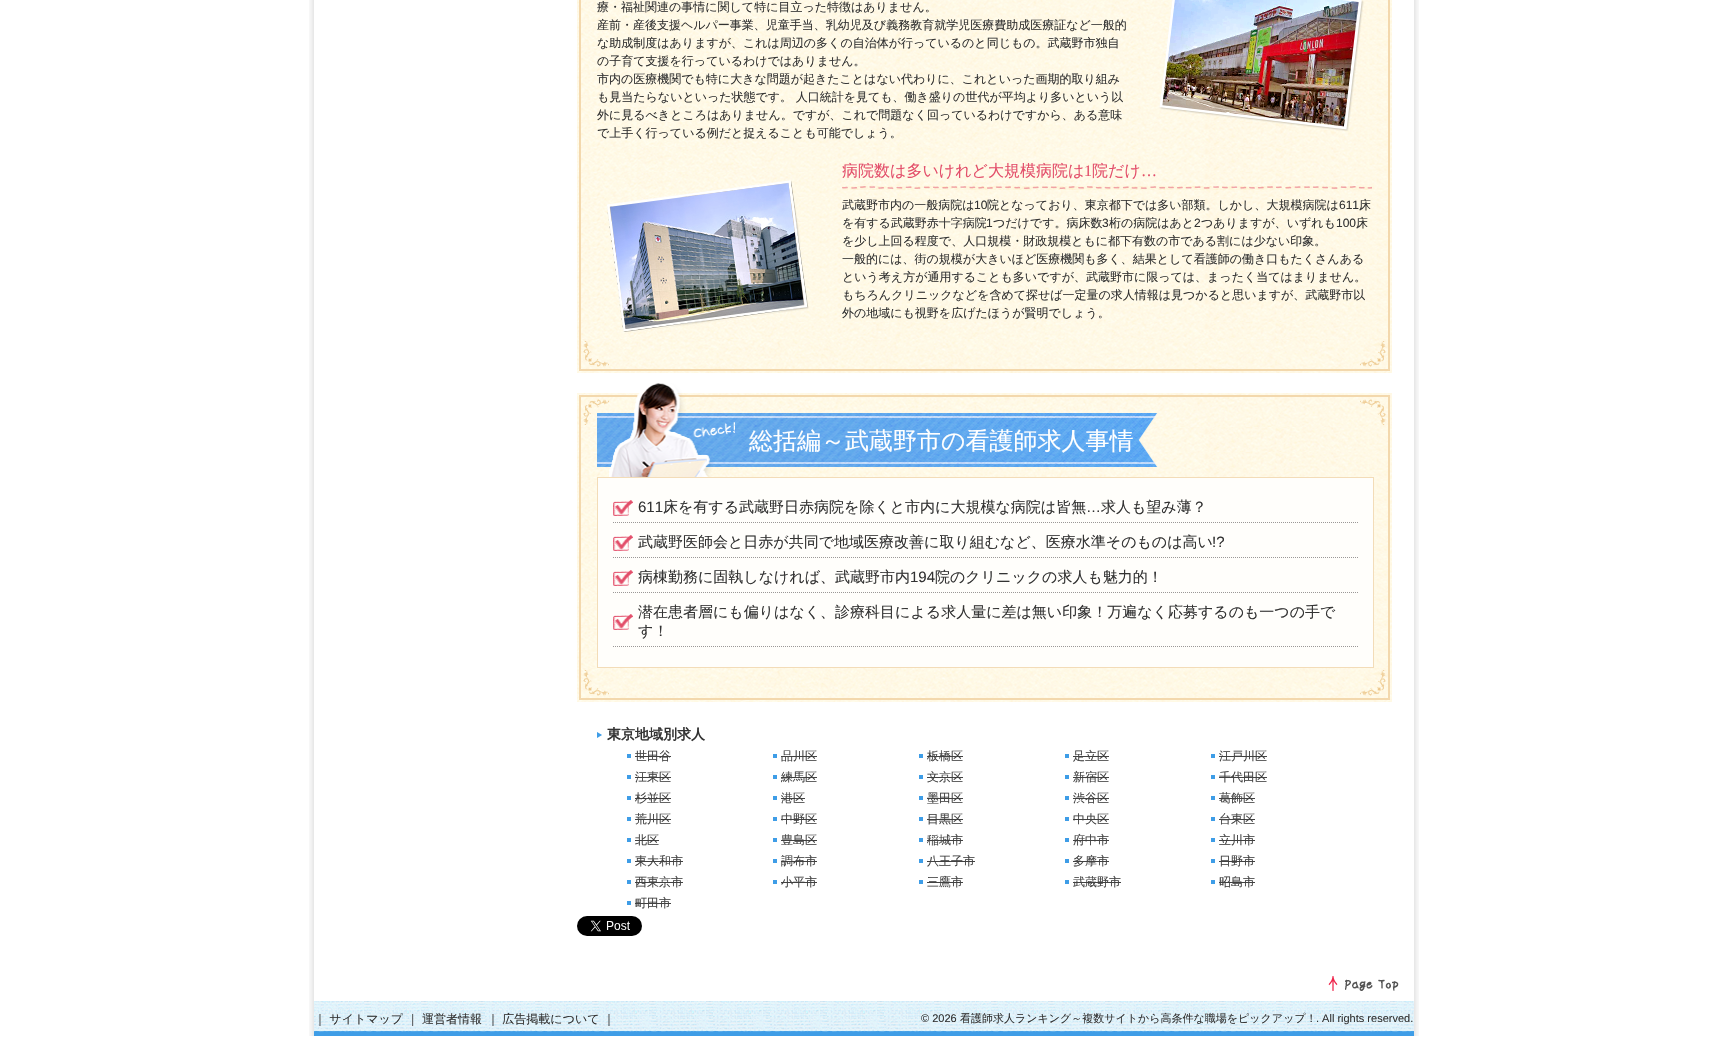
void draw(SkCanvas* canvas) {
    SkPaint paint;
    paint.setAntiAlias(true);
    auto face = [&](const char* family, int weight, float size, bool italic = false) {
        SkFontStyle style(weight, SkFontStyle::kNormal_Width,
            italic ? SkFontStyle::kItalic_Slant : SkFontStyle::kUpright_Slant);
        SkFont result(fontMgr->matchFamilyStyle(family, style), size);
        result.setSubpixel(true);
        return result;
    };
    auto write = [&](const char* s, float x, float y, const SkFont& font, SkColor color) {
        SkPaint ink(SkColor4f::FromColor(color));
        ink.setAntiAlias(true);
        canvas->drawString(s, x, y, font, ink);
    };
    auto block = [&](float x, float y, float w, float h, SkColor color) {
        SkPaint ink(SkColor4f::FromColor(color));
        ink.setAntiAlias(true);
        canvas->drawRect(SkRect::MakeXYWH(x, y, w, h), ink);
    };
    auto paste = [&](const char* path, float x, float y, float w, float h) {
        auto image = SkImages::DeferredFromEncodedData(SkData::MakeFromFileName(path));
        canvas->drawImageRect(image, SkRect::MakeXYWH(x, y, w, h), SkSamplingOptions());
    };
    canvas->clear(SK_ColorWHITE);
    paste("pic1.png", 309, 0, 1110, 1036);
    paste("pic2.png", 577, 339, 815, 34);
    paste("pic3.png", 577, 0, 815, 339);
    auto kFont1 = face("WenQuanYi Zen Hei", 500, 12);
    write("療・福祉関連の事情に関して特に目立った特徴はありません。", 597, 11, kFont1, SkColorSetRGB(51, 51, 51));
    write("産前・産後支援ヘルパー事業、児童手当、乳幼児及び義務教育就学児医療費助成医療証など一般的", 597, 29, kFont1, SkColorSetRGB(51, 51, 51));
    write("な助成制度はありますが、これは周辺の多くの自治体が行っているのと同じもの。武蔵野市独自", 597, 47, kFont1, SkColorSetRGB(51, 51, 51));
    write("の子育て支援を行っているわけではありません。", 597, 65, kFont1, SkColorSetRGB(51, 51, 51));
    write("市内の医療機関でも特に大きな問題が起きたことはない代わりに、これといった画期的取り組み", 597, 83, kFont1, SkColorSetRGB(51, 51, 51));
    write("も見当たらないといった状態です。 人口統計を見ても、働き盛りの世代が平均より多いという以", 597, 101, kFont1, SkColorSetRGB(51, 51, 51));
    write("外に見るべきところはありません。ですが、これで問題なく回っているわけですから、ある意味", 597, 119, kFont1, SkColorSetRGB(51, 51, 51));
    write("で上手く行っている例だと捉えることも可能でしょう。", 597, 137, kFont1, SkColorSetRGB(51, 51, 51));
    paste("pic4.png", 1159, 0, 205, 131);
    paste("pic5.png", 607, 180, 202, 152);
    paste("pic6.png", 842, 186, 530, 4);
    auto kFont2 = face("WenQuanYi Zen Hei", 500, 16);
    write("病院数は多いけれど大規模病院は", 842, 176, kFont2, SkColorSetRGB(227, 78, 106));
    auto kFont3 = face("Liberation Serif", 400, 16);
    write("1", 1084, 176, kFont3, SkColorSetRGB(227, 78, 106));
    write("院だけ", 1092, 176, kFont2, SkColorSetRGB(227, 78, 106));
    write("…", 1141, 176, kFont3, SkColorSetRGB(227, 78, 106));
    write("武蔵野市内の一般病院は", 842, 209, kFont1, SkColorSetRGB(51, 51, 51));
    auto kFont4 = face("Liberation Sans", 400, 12);
    write("10", 974, 209, kFont4, SkColorSetRGB(51, 51, 51));
    write("院となっており、東京都下では多い部類。しかし、大規模病院は", 987, 209, kFont1, SkColorSetRGB(51, 51, 51));
    write("611", 1339, 209, kFont4, SkColorSetRGB(51, 51, 51));
    write("床", 1359, 209, kFont1, SkColorSetRGB(51, 51, 51));
    write("を有する武蔵野赤十字病院", 842, 227, kFont1, SkColorSetRGB(51, 51, 51));
    write("1", 986, 227, kFont4, SkColorSetRGB(51, 51, 51));
    write("つだけです。病床数", 993, 227, kFont1, SkColorSetRGB(51, 51, 51));
    write("3", 1102, 227, kFont4, SkColorSetRGB(51, 51, 51));
    write("桁の病院はあと", 1109, 227, kFont1, SkColorSetRGB(51, 51, 51));
    write("2", 1194, 227, kFont4, SkColorSetRGB(51, 51, 51));
    write("つありますが、いずれも", 1201, 227, kFont1, SkColorSetRGB(51, 51, 51));
    write("100", 1336, 227, kFont4, SkColorSetRGB(51, 51, 51));
    write("床", 1356, 227, kFont1, SkColorSetRGB(51, 51, 51));
    write("を少し上回る程度で、人口規模・財政規模ともに都下有数の市である割には少ない印象。", 842, 245, kFont1, SkColorSetRGB(51, 51, 51));
    write("一般的には、街の規模が大きいほど医療機関も多く、結果として看護師の働き口もたくさんある", 842, 263, kFont1, SkColorSetRGB(51, 51, 51));
    write("という考え方が通用することも多いですが、武蔵野市に限っては、まったく当てはまりません。", 842, 281, kFont1, SkColorSetRGB(51, 51, 51));
    write("もちろんクリニックなどを含めて探せば一定量の求人情報は見つかると思いますが、武蔵野市以", 842, 299, kFont1, SkColorSetRGB(51, 51, 51));
    write("外の地域にも視野を広げたほうが賢明でしょう。", 842, 317, kFont1, SkColorSetRGB(51, 51, 51));
    paste("pic7.png", 577, 393, 815, 34);
    paste("pic2.png", 577, 668, 815, 34);
    paste("pic8.png", 577, 427, 815, 241);
    paste("pic9.png", 597, 413, 561, 54);
    paste("pic10.png", 609, 383, 126, 94);
    auto kFont5 = face("WenQuanYi Zen Hei", 500, 24);
    write("総括編～武蔵野市の看護師求人事情", 749, 449, kFont5, SK_ColorWHITE);
    paint.setColor(SkColorSetRGB(255, 254, 251));
    canvas->drawRect(SkRect::MakeXYWH(597.5f, 477.5f, 776, 190), paint);
    paint.setStyle(SkPaint::kStroke_Style);
    paint.setStrokeWidth(1);
    paint.setColor(SkColorSetRGB(243, 220, 184));
    canvas->drawRect(SkRect::MakeXYWH(597.5f, 477.5f, 776, 190), paint);
    paste("pic11.png", 613, 500, 20, 16);
    paint.setColor(SkColorSetRGB(155, 152, 151));
    paint.setPathEffect(SkDashPathEffect::Make({{1, 1}}, 0));
    canvas->drawPath(SkPathBuilder().moveTo(613, 522.5f).lineTo(1358, 522.5f).detach(), paint);
    paint.setPathEffect(nullptr);
    auto kFont6 = face("Liberation Sans", 400, 15);
    write("611", 638, 512, kFont6, SkColorSetRGB(51, 51, 51));
    auto kFont7 = face("WenQuanYi Zen Hei", 500, 15);
    write("床を有する武蔵野日赤病院を除くと市内に大規模な病院は皆無", 663, 512, kFont7, SkColorSetRGB(51, 51, 51));
    write("…", 1086, 512, kFont6, SkColorSetRGB(51, 51, 51));
    write("求人も望み薄？", 1101, 512, kFont7, SkColorSetRGB(51, 51, 51));
    paste("pic11.png", 613, 535, 20, 16);
    paint.setPathEffect(SkDashPathEffect::Make({{1, 1}}, 0));
    canvas->drawPath(SkPathBuilder().moveTo(613, 557.5f).lineTo(1358, 557.5f).detach(), paint);
    paint.setPathEffect(nullptr);
    write("武蔵野医師会と日赤が共同で地域医療改善に取り組むなど、医療水準そのものは高い", 638, 547, kFont7, SkColorSetRGB(51, 51, 51));
    write("!?", 1212, 547, kFont6, SkColorSetRGB(51, 51, 51));
    paste("pic11.png", 613, 570, 20, 16);
    paint.setPathEffect(SkDashPathEffect::Make({{1, 1}}, 0));
    canvas->drawPath(SkPathBuilder().moveTo(613, 592.5f).lineTo(1358, 592.5f).detach(), paint);
    paint.setPathEffect(nullptr);
    write("病棟勤務に固執しなければ、武蔵野市内", 638, 582, kFont7, SkColorSetRGB(51, 51, 51));
    write("194", 910, 582, kFont6, SkColorSetRGB(51, 51, 51));
    write("院のクリニックの求人も魅力的！", 935, 582, kFont7, SkColorSetRGB(51, 51, 51));
    paste("pic11.png", 613, 614, 20, 16);
    paint.setPathEffect(SkDashPathEffect::Make({{1, 1}}, 0));
    canvas->drawPath(SkPathBuilder().moveTo(613, 646.5f).lineTo(1358, 646.5f).detach(), paint);
    paint.setPathEffect(nullptr);
    write("潜在患者層にも偏りはなく、診療科目による求人量に差は無い印象！万遍なく応募するのも一つの手で", 638, 617, kFont7, SkColorSetRGB(51, 51, 51));
    write("す！", 638, 636, kFont7, SkColorSetRGB(51, 51, 51));
    paste("pic12.png", 597, 732, 5, 6);
    auto kFont8 = face("WenQuanYi Zen Hei", 700, 14);
    write("東京地域別求人", 607, 739, kFont8, SkColorSetRGB(51, 51, 51));
    block(627, 754, 4, 4, SkColorSetRGB(62, 157, 231));
    write("世田谷", 635, 760, kFont1, SkColorSetRGB(65, 65, 65));
    block(635, 756, 36, 1, SkColorSetRGB(65, 65, 65));
    block(773, 754, 4, 4, SkColorSetRGB(62, 157, 231));
    write("品川区", 781, 760, kFont1, SkColorSetRGB(65, 65, 65));
    block(781, 756, 36, 1, SkColorSetRGB(65, 65, 65));
    block(919, 754, 4, 4, SkColorSetRGB(62, 157, 231));
    write("板橋区", 927, 760, kFont1, SkColorSetRGB(65, 65, 65));
    block(927, 756, 36, 1, SkColorSetRGB(65, 65, 65));
    block(1065, 754, 4, 4, SkColorSetRGB(62, 157, 231));
    write("足立区", 1073, 760, kFont1, SkColorSetRGB(65, 65, 65));
    block(1073, 756, 36, 1, SkColorSetRGB(65, 65, 65));
    block(1211, 754, 4, 4, SkColorSetRGB(62, 157, 231));
    write("江戸川区", 1219, 760, kFont1, SkColorSetRGB(65, 65, 65));
    block(1219, 756, 48, 1, SkColorSetRGB(65, 65, 65));
    block(627, 775, 4, 4, SkColorSetRGB(62, 157, 231));
    write("江東区", 635, 781, kFont1, SkColorSetRGB(65, 65, 65));
    block(635, 777, 36, 1, SkColorSetRGB(65, 65, 65));
    block(773, 775, 4, 4, SkColorSetRGB(62, 157, 231));
    write("練馬区", 781, 781, kFont1, SkColorSetRGB(65, 65, 65));
    block(781, 777, 36, 1, SkColorSetRGB(65, 65, 65));
    block(919, 775, 4, 4, SkColorSetRGB(62, 157, 231));
    write("文京区", 927, 781, kFont1, SkColorSetRGB(65, 65, 65));
    block(927, 777, 36, 1, SkColorSetRGB(65, 65, 65));
    block(1065, 775, 4, 4, SkColorSetRGB(62, 157, 231));
    write("新宿区", 1073, 781, kFont1, SkColorSetRGB(65, 65, 65));
    block(1073, 777, 36, 1, SkColorSetRGB(65, 65, 65));
    block(1211, 775, 4, 4, SkColorSetRGB(62, 157, 231));
    write("千代田区", 1219, 781, kFont1, SkColorSetRGB(65, 65, 65));
    block(1219, 777, 48, 1, SkColorSetRGB(65, 65, 65));
    block(627, 796, 4, 4, SkColorSetRGB(62, 157, 231));
    write("杉並区", 635, 802, kFont1, SkColorSetRGB(65, 65, 65));
    block(635, 798, 36, 1, SkColorSetRGB(65, 65, 65));
    block(773, 796, 4, 4, SkColorSetRGB(62, 157, 231));
    write("港区", 781, 802, kFont1, SkColorSetRGB(65, 65, 65));
    block(781, 798, 24, 1, SkColorSetRGB(65, 65, 65));
    block(919, 796, 4, 4, SkColorSetRGB(62, 157, 231));
    write("墨田区", 927, 802, kFont1, SkColorSetRGB(65, 65, 65));
    block(927, 798, 36, 1, SkColorSetRGB(65, 65, 65));
    block(1065, 796, 4, 4, SkColorSetRGB(62, 157, 231));
    write("渋谷区", 1073, 802, kFont1, SkColorSetRGB(65, 65, 65));
    block(1073, 798, 36, 1, SkColorSetRGB(65, 65, 65));
    block(1211, 796, 4, 4, SkColorSetRGB(62, 157, 231));
    write("葛飾区", 1219, 802, kFont1, SkColorSetRGB(65, 65, 65));
    block(1219, 798, 36, 1, SkColorSetRGB(65, 65, 65));
    block(627, 817, 4, 4, SkColorSetRGB(62, 157, 231));
    write("荒川区", 635, 823, kFont1, SkColorSetRGB(65, 65, 65));
    block(635, 819, 36, 1, SkColorSetRGB(65, 65, 65));
    block(773, 817, 4, 4, SkColorSetRGB(62, 157, 231));
    write("中野区", 781, 823, kFont1, SkColorSetRGB(65, 65, 65));
    block(781, 819, 36, 1, SkColorSetRGB(65, 65, 65));
    block(919, 817, 4, 4, SkColorSetRGB(62, 157, 231));
    write("目黒区", 927, 823, kFont1, SkColorSetRGB(65, 65, 65));
    block(927, 819, 36, 1, SkColorSetRGB(65, 65, 65));
    block(1065, 817, 4, 4, SkColorSetRGB(62, 157, 231));
    write("中央区", 1073, 823, kFont1, SkColorSetRGB(65, 65, 65));
    block(1073, 819, 36, 1, SkColorSetRGB(65, 65, 65));
    block(1211, 817, 4, 4, SkColorSetRGB(62, 157, 231));
    write("台東区", 1219, 823, kFont1, SkColorSetRGB(65, 65, 65));
    block(1219, 819, 36, 1, SkColorSetRGB(65, 65, 65));
    block(627, 838, 4, 4, SkColorSetRGB(62, 157, 231));
    write("北区", 635, 844, kFont1, SkColorSetRGB(65, 65, 65));
    block(635, 840, 24, 1, SkColorSetRGB(65, 65, 65));
    block(773, 838, 4, 4, SkColorSetRGB(62, 157, 231));
    write("豊島区", 781, 844, kFont1, SkColorSetRGB(65, 65, 65));
    block(781, 840, 36, 1, SkColorSetRGB(65, 65, 65));
    block(919, 838, 4, 4, SkColorSetRGB(62, 157, 231));
    write("稲城市", 927, 844, kFont1, SkColorSetRGB(65, 65, 65));
    block(927, 840, 36, 1, SkColorSetRGB(65, 65, 65));
    block(1065, 838, 4, 4, SkColorSetRGB(62, 157, 231));
    write("府中市", 1073, 844, kFont1, SkColorSetRGB(65, 65, 65));
    block(1073, 840, 36, 1, SkColorSetRGB(65, 65, 65));
    block(1211, 838, 4, 4, SkColorSetRGB(62, 157, 231));
    write("立川市", 1219, 844, kFont1, SkColorSetRGB(65, 65, 65));
    block(1219, 840, 36, 1, SkColorSetRGB(65, 65, 65));
    block(627, 859, 4, 4, SkColorSetRGB(62, 157, 231));
    write("東大和市", 635, 865, kFont1, SkColorSetRGB(65, 65, 65));
    block(635, 861, 48, 1, SkColorSetRGB(65, 65, 65));
    block(773, 859, 4, 4, SkColorSetRGB(62, 157, 231));
    write("調布市", 781, 865, kFont1, SkColorSetRGB(65, 65, 65));
    block(781, 861, 36, 1, SkColorSetRGB(65, 65, 65));
    block(919, 859, 4, 4, SkColorSetRGB(62, 157, 231));
    write("八王子市", 927, 865, kFont1, SkColorSetRGB(65, 65, 65));
    block(927, 861, 48, 1, SkColorSetRGB(65, 65, 65));
    block(1065, 859, 4, 4, SkColorSetRGB(62, 157, 231));
    write("多摩市", 1073, 865, kFont1, SkColorSetRGB(65, 65, 65));
    block(1073, 861, 36, 1, SkColorSetRGB(65, 65, 65));
    block(1211, 859, 4, 4, SkColorSetRGB(62, 157, 231));
    write("日野市", 1219, 865, kFont1, SkColorSetRGB(65, 65, 65));
    block(1219, 861, 36, 1, SkColorSetRGB(65, 65, 65));
    block(627, 880, 4, 4, SkColorSetRGB(62, 157, 231));
    write("西東京市", 635, 886, kFont1, SkColorSetRGB(65, 65, 65));
    block(635, 882, 48, 1, SkColorSetRGB(65, 65, 65));
    block(773, 880, 4, 4, SkColorSetRGB(62, 157, 231));
    write("小平市", 781, 886, kFont1, SkColorSetRGB(65, 65, 65));
    block(781, 882, 36, 1, SkColorSetRGB(65, 65, 65));
    block(919, 880, 4, 4, SkColorSetRGB(62, 157, 231));
    write("三鷹市", 927, 886, kFont1, SkColorSetRGB(65, 65, 65));
    block(927, 882, 36, 1, SkColorSetRGB(65, 65, 65));
    block(1065, 880, 4, 4, SkColorSetRGB(62, 157, 231));
    write("武蔵野市", 1073, 886, kFont1, SkColorSetRGB(65, 65, 65));
    block(1073, 882, 48, 1, SkColorSetRGB(65, 65, 65));
    block(1211, 880, 4, 4, SkColorSetRGB(62, 157, 231));
    write("昭島市", 1219, 886, kFont1, SkColorSetRGB(65, 65, 65));
    block(1219, 882, 36, 1, SkColorSetRGB(65, 65, 65));
    block(627, 901, 4, 4, SkColorSetRGB(62, 157, 231));
    write("町田市", 635, 907, kFont1, SkColorSetRGB(65, 65, 65));
    block(635, 903, 36, 1, SkColorSetRGB(65, 65, 65));
    paste("pic13.png", 577, 916, 65, 20);
    paste("pic14.png", 1328, 976, 71, 15);
    paste("pic15.png", 314, 1001, 1100, 35);
    write("｜ サイトマップ ｜ 運営者情報", 314, 1023, kFont1, SkColorSetRGB(51, 51, 51));
    write("｜ 広告掲載について ｜", 487, 1023, kFont1, SkColorSetRGB(51, 51, 51));
    auto kFont9 = face("Liberation Sans", 400, 11);
    write("© 2026", 921, 1022, kFont9, SkColorSetRGB(51, 51, 51));
    auto kFont10 = face("WenQuanYi Zen Hei", 500, 11);
    write("看護師求人ランキング～複数サイトから高条件な職場をピックアップ！", 960, 1022, kFont10, SkColorSetRGB(51, 51, 51));
    write(". All rights reserved.", 1316, 1022, kFont9, SkColorSetRGB(51, 51, 51));
}
